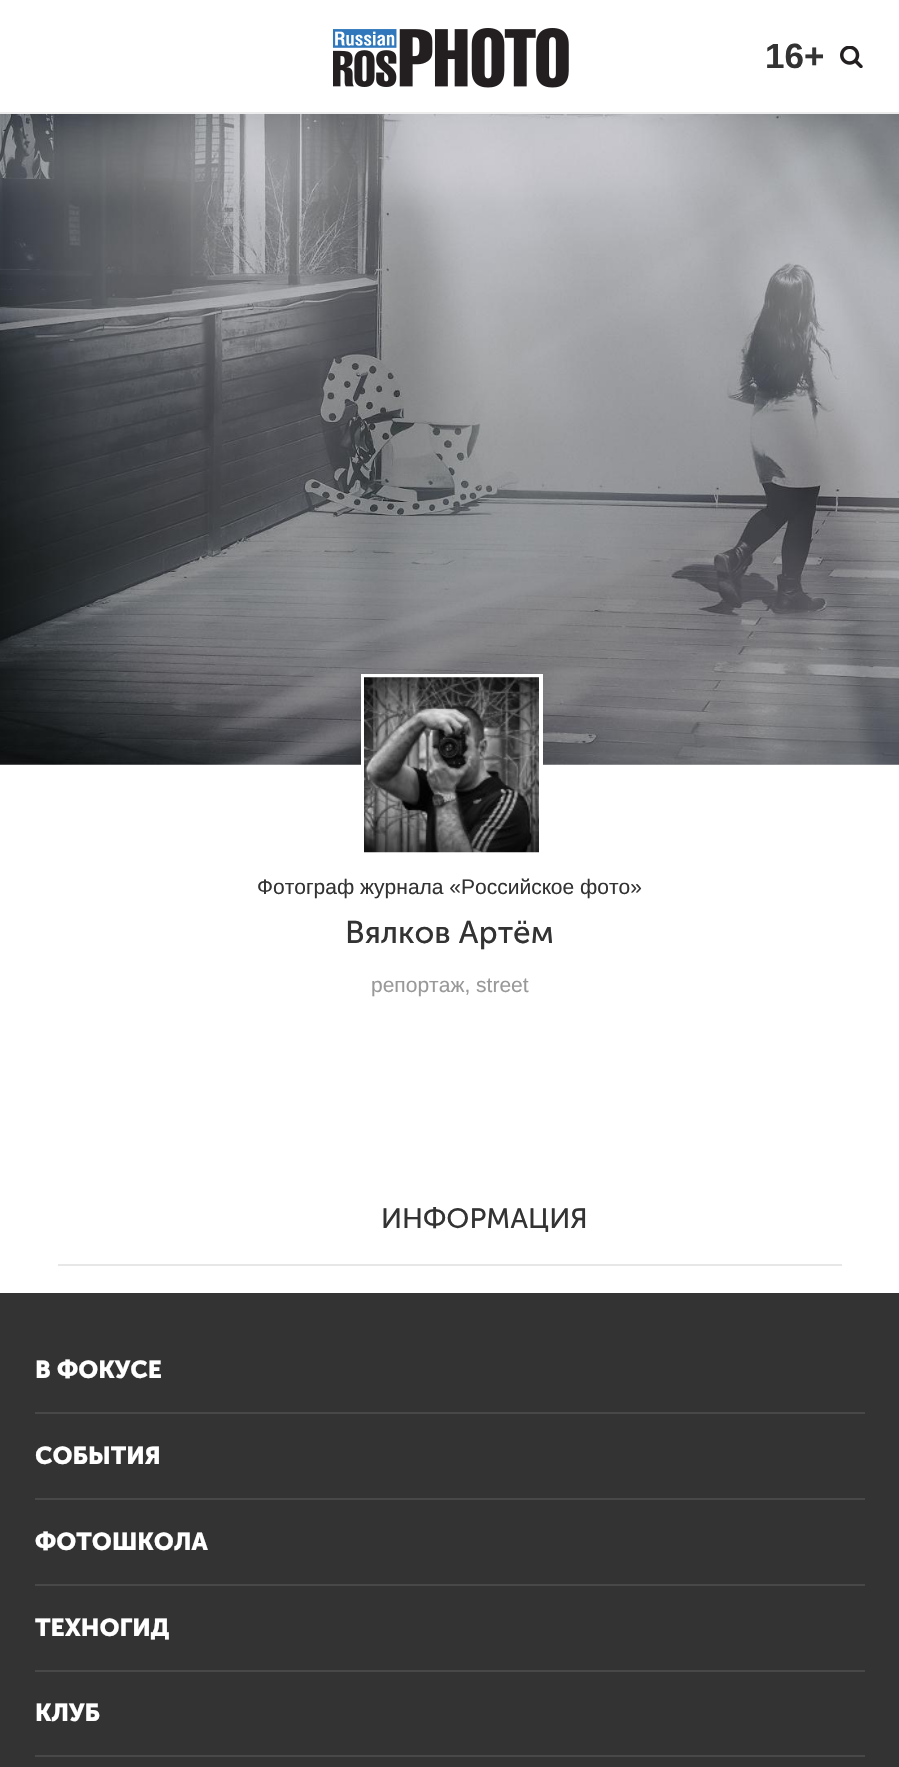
void draw(SkCanvas* canvas) {
    SkPaint paint;
    paint.setAntiAlias(true);
    auto face = [&](const char* family, int weight, float size, bool italic = false) {
        SkFontStyle style(weight, SkFontStyle::kNormal_Width,
            italic ? SkFontStyle::kItalic_Slant : SkFontStyle::kUpright_Slant);
        SkFont result(fontMgr->matchFamilyStyle(family, style), size);
        result.setSubpixel(true);
        return result;
    };
    auto write = [&](const char* s, float x, float y, const SkFont& font, SkColor color) {
        SkPaint ink(SkColor4f::FromColor(color));
        ink.setAntiAlias(true);
        canvas->drawString(s, x, y, font, ink);
    };
    auto block = [&](float x, float y, float w, float h, SkColor color) {
        SkPaint ink(SkColor4f::FromColor(color));
        ink.setAntiAlias(true);
        canvas->drawRect(SkRect::MakeXYWH(x, y, w, h), ink);
    };
    auto paste = [&](const char* path, float x, float y, float w, float h) {
        auto image = SkImages::DeferredFromEncodedData(SkData::MakeFromFileName(path));
        canvas->drawImageRect(image, SkRect::MakeXYWH(x, y, w, h), SkSamplingOptions());
    };
    canvas->clear(SK_ColorWHITE);
    block(0, 112, 899, 2, SkColorSetRGB(236, 236, 236));
    paste("pic1.png", 333, 28, 236, 60);
    auto kFont1 = face("Liberation Sans", 700, 35);
    write("16+", 765, 68, kFont1, SkColorSetRGB(51, 51, 51));
    paste("pic2.png", 840, 46, 23, 22);
    paste("pic3.png", 0, 114, 899, 651);
    paint.setStyle(SkPaint::kStroke_Style);
    paint.setStrokeWidth(4);
    paint.setColor(SK_ColorWHITE);
    canvas->drawRect(SkRect::MakeXYWH(363, 676, 178, 178), paint);
    paste("pic4.png", 364, 677, 175, 176);
    auto kFont2 = face("Liberation Sans", 400, 21);
    write("Фотограф журнала «Российское фото»", 257, 894, kFont2, SkColorSetRGB(51, 51, 51));
    auto kFont3 = face("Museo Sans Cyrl", 400, 31.5f);
    write("Вялков Артём", 345, 943, kFont3, SkColorSetRGB(51, 51, 51));
    write("репортаж, street", 371, 992, kFont2, SkColorSetRGB(153, 153, 153));
    block(58, 1264, 784, 2, SkColorSetRGB(231, 231, 231));
    auto kFont4 = face("Museo Sans Cyrl", 400, 28);
    write("ИНФОРМАЦИЯ", 381, 1228, kFont4, SkColorSetRGB(51, 51, 51));
    block(0, 1293, 899, 474, SkColorSetRGB(51, 51, 51));
    block(35, 1412, 830, 2, SkColorSetRGB(72, 72, 72));
    auto kFont5 = face("Museo Sans Cyrl", 700, 24.5f);
    write("В ФОКУСЕ", 35, 1378, kFont5, SK_ColorWHITE);
    block(35, 1498, 830, 2, SkColorSetRGB(72, 72, 72));
    write("СОБЫТИЯ", 35, 1464, kFont5, SK_ColorWHITE);
    block(35, 1584, 830, 2, SkColorSetRGB(72, 72, 72));
    write("ФОТОШКОЛА", 35, 1550, kFont5, SK_ColorWHITE);
    block(35, 1670, 830, 2, SkColorSetRGB(72, 72, 72));
    write("ТЕХНОГИД", 35, 1636, kFont5, SK_ColorWHITE);
    block(35, 1755, 830, 2, SkColorSetRGB(72, 72, 72));
    write("КЛУБ", 35, 1721, kFont5, SK_ColorWHITE);
}
